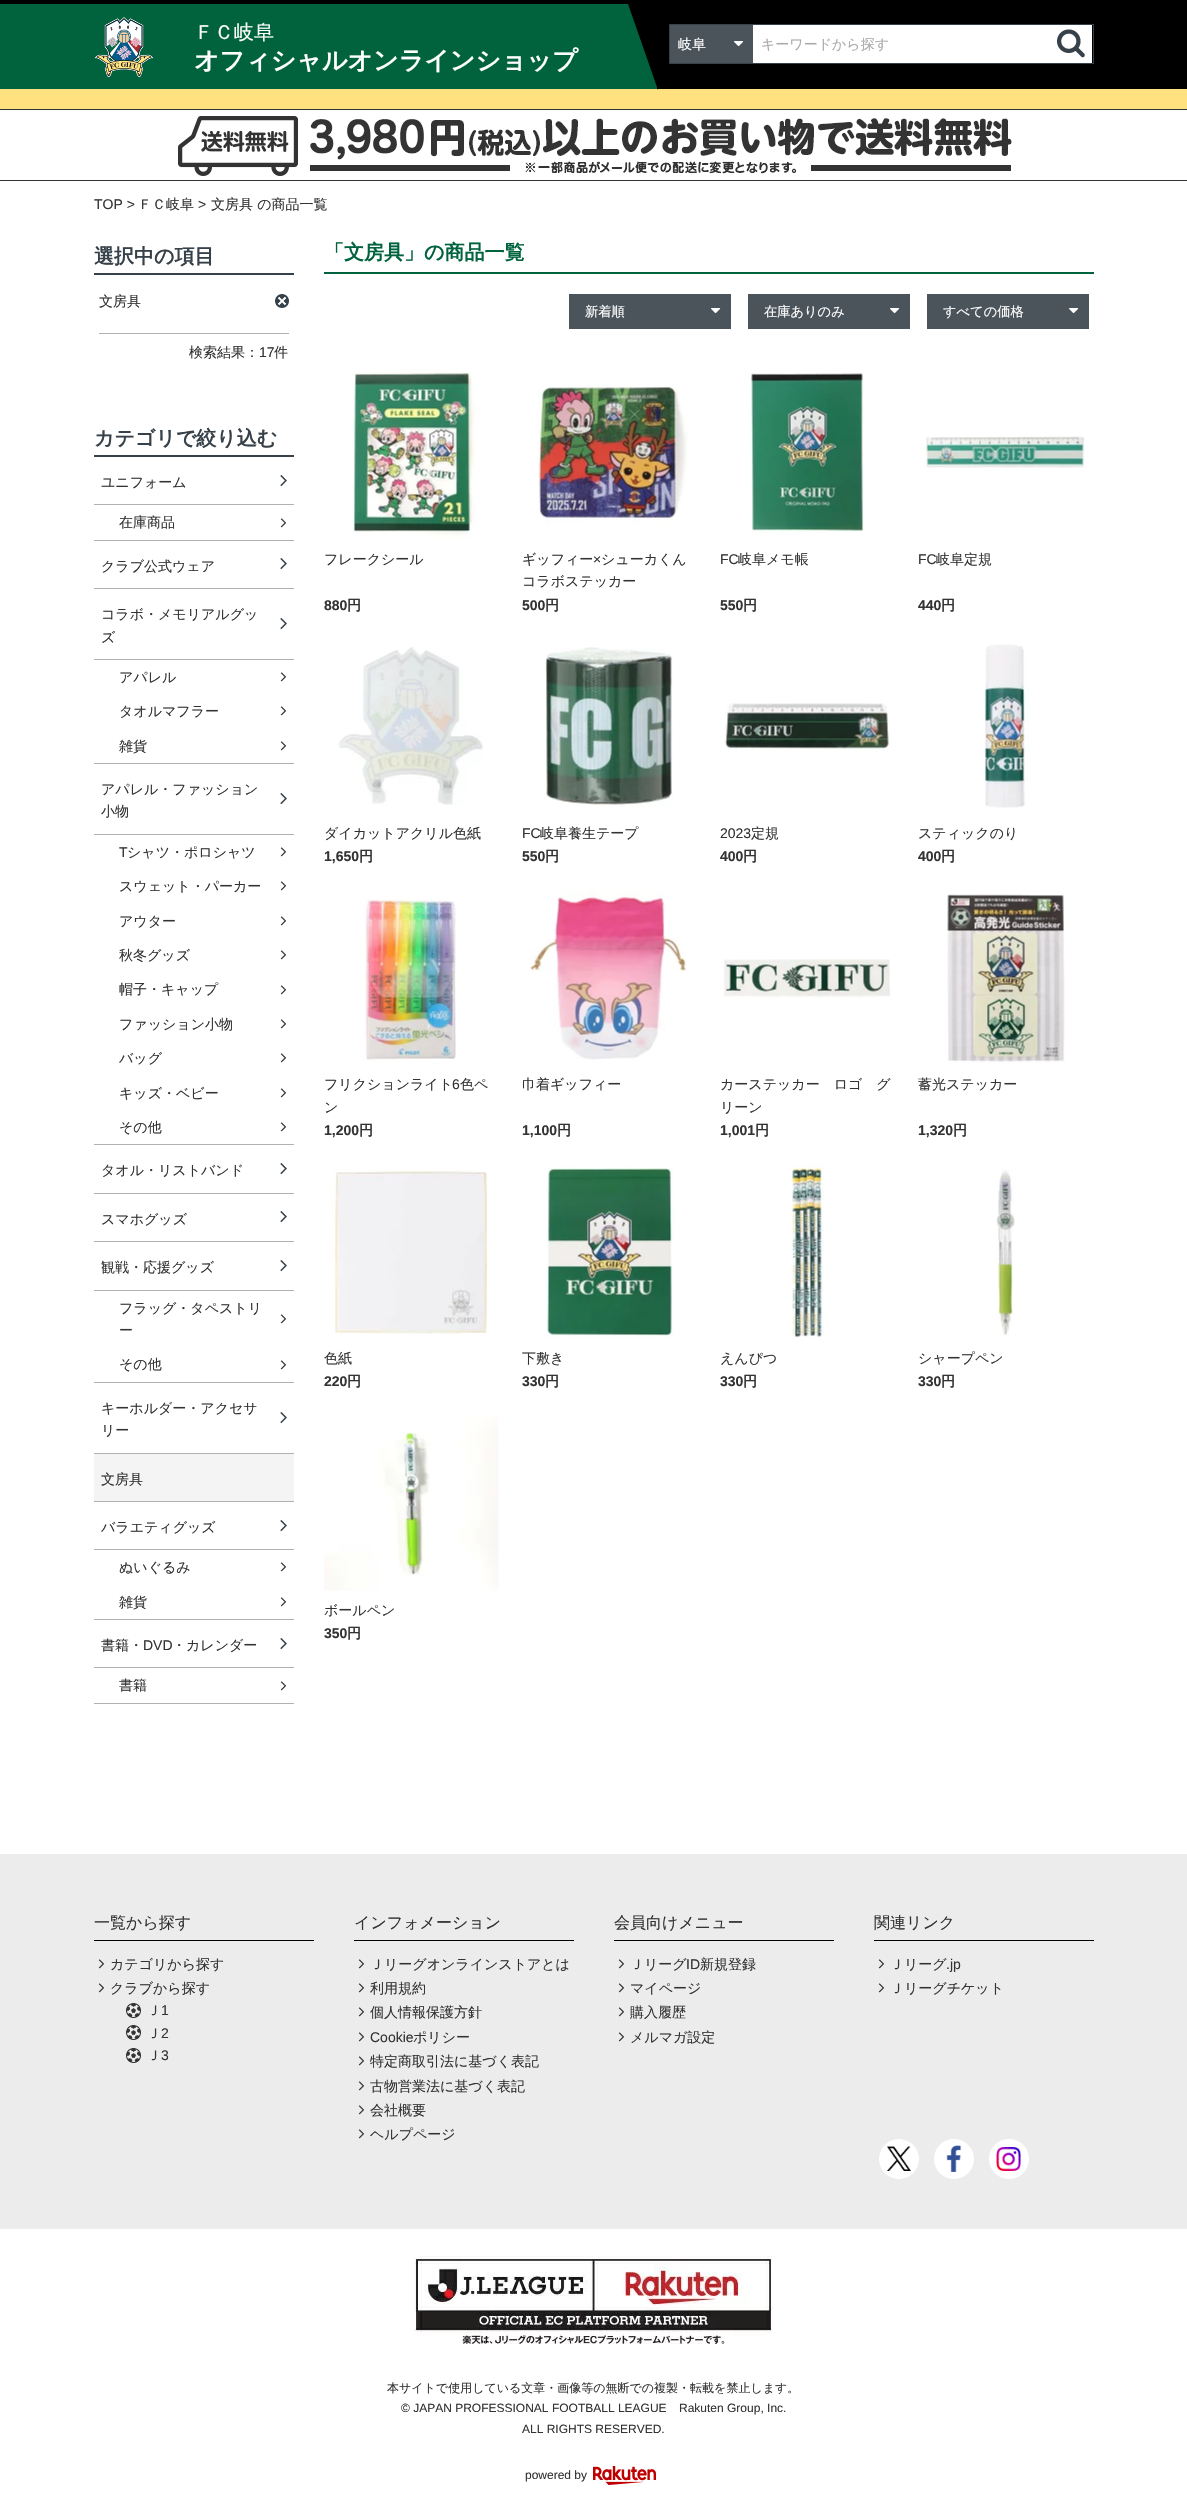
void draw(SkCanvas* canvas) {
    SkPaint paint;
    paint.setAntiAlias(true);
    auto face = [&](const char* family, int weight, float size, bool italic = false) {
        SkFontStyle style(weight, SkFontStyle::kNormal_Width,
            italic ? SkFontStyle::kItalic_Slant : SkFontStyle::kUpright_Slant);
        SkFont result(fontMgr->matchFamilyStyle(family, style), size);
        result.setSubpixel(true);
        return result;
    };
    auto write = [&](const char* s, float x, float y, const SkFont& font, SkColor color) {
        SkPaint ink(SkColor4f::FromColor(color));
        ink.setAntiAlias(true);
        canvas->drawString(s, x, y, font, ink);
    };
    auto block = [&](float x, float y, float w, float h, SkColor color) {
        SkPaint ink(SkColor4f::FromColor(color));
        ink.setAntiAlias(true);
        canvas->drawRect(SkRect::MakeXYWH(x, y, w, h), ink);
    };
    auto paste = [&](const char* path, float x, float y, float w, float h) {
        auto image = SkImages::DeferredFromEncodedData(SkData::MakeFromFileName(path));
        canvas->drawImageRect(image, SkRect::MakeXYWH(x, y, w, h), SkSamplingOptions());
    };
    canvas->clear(SK_ColorWHITE);
    block(0, 4, 657, 85, SkColorSetRGB(0, 99, 61));
    block(0, 0, 1187, 4, SK_ColorBLACK);
    block(0, 89, 1187, 20, SkColorSetRGB(255, 225, 127));
    paste("pic1.png", 95, 17, 58, 60);
    auto kFont1 = face("WenQuanYi Zen Hei", 500, 20);
    write("ＦＣ岐阜", 194, 39, kFont1, SK_ColorWHITE);
    auto kFont2 = face("WenQuanYi Zen Hei", 700, 25);
    write("オフィシャルオンラインショップ", 194, 69, kFont2, SK_ColorWHITE);
    block(657, 4, 530, 85, SK_ColorBLACK);
    paint.setColor(SK_ColorBLACK);
    canvas->drawPath(SkPathBuilder().moveTo(658, 4).lineTo(658, 90).lineTo(628, 4).close().detach(), paint);
    paint.setStyle(SkPaint::kStroke_Style);
    paint.setStrokeWidth(1);
    paint.setColor(SkColorSetRGB(55, 65, 73));
    canvas->drawRect(SkRect::MakeXYWH(669.5f, 24.5f, 424, 39), paint);
    block(670, 25, 83, 38, SkColorSetRGB(75, 84, 91));
    paste("pic2.png", 734, 41, 10, 6);
    auto kFont3 = face("WenQuanYi Zen Hei", 500, 14);
    write("岐阜", 678, 49, kFont3, SK_ColorWHITE);
    block(753, 25, 339, 38, SK_ColorWHITE);
    write("キーワードから探す", 761, 49, kFont3, SkColorSetRGB(170, 170, 170));
    paste("pic3.png", 1057, 29, 28, 29);
    block(0, 109, 1187, 1, SkColorSetRGB(51, 51, 51));
    block(0, 180, 1187, 1, SkColorSetRGB(51, 51, 51));
    paste("pic4.png", 178, 116, 834, 60);
    auto kFont4 = face("Liberation Sans", 400, 14);
    write("TOP >", 94, 209, kFont4, SkColorSetRGB(51, 51, 51));
    write("ＦＣ岐阜", 138, 209, kFont3, SkColorSetRGB(51, 51, 51));
    write(">", 198, 209, kFont4, SkColorSetRGB(51, 51, 51));
    write("文房具 の商品一覧", 211, 209, kFont3, SkColorSetRGB(51, 51, 51));
    block(94, 273, 200, 2, SkColorSetRGB(55, 65, 73));
    auto kFont5 = face("WenQuanYi Zen Hei", 700, 20);
    write("選択中の項目", 94, 263, kFont5, SkColorSetRGB(55, 65, 73));
    block(99, 333, 190, 1, SkColorSetRGB(177, 177, 177));
    write("文房具", 99, 306, kFont3, SkColorSetRGB(51, 51, 51));
    paste("pic5.png", 275, 294, 14, 14);
    write("検索結果：", 189, 357, kFont3, SkColorSetRGB(51, 51, 51));
    write("17", 259, 357, kFont4, SkColorSetRGB(51, 51, 51));
    write("件", 274, 357, kFont3, SkColorSetRGB(51, 51, 51));
    block(94, 455, 200, 2, SkColorSetRGB(55, 65, 73));
    write("カテゴリで絞り込む", 94, 445, kFont5, SkColorSetRGB(55, 65, 73));
    block(94, 540, 200, 1, SkColorSetRGB(177, 177, 177));
    paste("pic6.png", 280, 475, 7, 12);
    write("ユニフォーム", 101, 487, kFont3, SkColorSetRGB(51, 51, 51));
    block(94, 504, 200, 1, SkColorSetRGB(177, 177, 177));
    paste("pic7.png", 280, 518, 6, 10);
    write("在庫商品", 119, 527, kFont3, SkColorSetRGB(51, 51, 51));
    block(94, 588, 200, 1, SkColorSetRGB(177, 177, 177));
    paste("pic6.png", 280, 558, 7, 12);
    write("クラブ公式ウェア", 101, 571, kFont3, SkColorSetRGB(51, 51, 51));
    block(94, 763, 200, 1, SkColorSetRGB(177, 177, 177));
    paste("pic6.png", 280, 618, 7, 12);
    write("コラボ・メモリアルグッ", 101, 619, kFont3, SkColorSetRGB(51, 51, 51));
    write("ズ", 101, 642, kFont3, SkColorSetRGB(51, 51, 51));
    block(94, 659, 200, 1, SkColorSetRGB(177, 177, 177));
    paste("pic7.png", 280, 672, 6, 10);
    write("アパレル", 119, 682, kFont3, SkColorSetRGB(51, 51, 51));
    paste("pic7.png", 280, 706, 6, 10);
    write("タオルマフラー", 119, 716, kFont3, SkColorSetRGB(51, 51, 51));
    paste("pic7.png", 280, 741, 6, 10);
    write("雑貨", 119, 751, kFont3, SkColorSetRGB(51, 51, 51));
    block(94, 1144, 200, 1, SkColorSetRGB(177, 177, 177));
    paste("pic6.png", 280, 793, 7, 12);
    write("アパレル・ファッション", 101, 794, kFont3, SkColorSetRGB(51, 51, 51));
    write("小物", 101, 816, kFont3, SkColorSetRGB(51, 51, 51));
    block(94, 834, 200, 1, SkColorSetRGB(177, 177, 177));
    paste("pic7.png", 280, 847, 6, 10);
    write("T", 119, 857, kFont4, SkColorSetRGB(51, 51, 51));
    write("シャツ・ポロシャツ", 127, 857, kFont3, SkColorSetRGB(51, 51, 51));
    paste("pic7.png", 280, 881, 6, 10);
    write("スウェット・パーカー", 119, 891, kFont3, SkColorSetRGB(51, 51, 51));
    paste("pic7.png", 280, 916, 6, 10);
    write("アウター", 119, 926, kFont3, SkColorSetRGB(51, 51, 51));
    paste("pic7.png", 280, 950, 6, 10);
    write("秋冬グッズ", 119, 960, kFont3, SkColorSetRGB(51, 51, 51));
    paste("pic7.png", 280, 985, 6, 10);
    write("帽子・キャップ", 119, 994, kFont3, SkColorSetRGB(51, 51, 51));
    paste("pic7.png", 280, 1019, 6, 10);
    write("ファッション小物", 119, 1029, kFont3, SkColorSetRGB(51, 51, 51));
    paste("pic7.png", 280, 1053, 6, 10);
    write("バッグ", 119, 1063, kFont3, SkColorSetRGB(51, 51, 51));
    paste("pic7.png", 280, 1088, 6, 10);
    write("キッズ・ベビー", 119, 1098, kFont3, SkColorSetRGB(51, 51, 51));
    paste("pic7.png", 280, 1122, 6, 10);
    write("その他", 119, 1132, kFont3, SkColorSetRGB(51, 51, 51));
    block(94, 1193, 200, 1, SkColorSetRGB(177, 177, 177));
    paste("pic6.png", 280, 1163, 7, 12);
    write("タオル・リストバンド", 101, 1175, kFont3, SkColorSetRGB(51, 51, 51));
    block(94, 1241, 200, 1, SkColorSetRGB(177, 177, 177));
    paste("pic6.png", 280, 1211, 7, 12);
    write("スマホグッズ", 101, 1224, kFont3, SkColorSetRGB(51, 51, 51));
    block(94, 1382, 200, 1, SkColorSetRGB(177, 177, 177));
    paste("pic6.png", 280, 1260, 7, 12);
    write("観戦・応援グッズ", 101, 1272, kFont3, SkColorSetRGB(51, 51, 51));
    block(94, 1290, 200, 1, SkColorSetRGB(177, 177, 177));
    paste("pic7.png", 280, 1314, 6, 10);
    write("フラッグ・タペストリ", 119, 1313, kFont3, SkColorSetRGB(51, 51, 51));
    write("ー", 119, 1335, kFont3, SkColorSetRGB(51, 51, 51));
    paste("pic7.png", 280, 1360, 6, 10);
    write("その他", 119, 1369, kFont3, SkColorSetRGB(51, 51, 51));
    block(94, 1453, 200, 1, SkColorSetRGB(177, 177, 177));
    paste("pic6.png", 280, 1412, 7, 12);
    write("キーホルダー・アクセサ", 101, 1413, kFont3, SkColorSetRGB(51, 51, 51));
    write("リー", 101, 1435, kFont3, SkColorSetRGB(51, 51, 51));
    block(94, 1501, 200, 1, SkColorSetRGB(177, 177, 177));
    block(94, 1454, 200, 47, SkColorSetRGB(244, 244, 244));
    write("文房具", 101, 1484, kFont3, SkColorSetRGB(51, 51, 51));
    block(94, 1619, 200, 1, SkColorSetRGB(177, 177, 177));
    paste("pic6.png", 280, 1520, 7, 12);
    write("バラエティグッズ", 101, 1532, kFont3, SkColorSetRGB(51, 51, 51));
    block(94, 1549, 200, 1, SkColorSetRGB(177, 177, 177));
    paste("pic7.png", 280, 1562, 6, 10);
    write("ぬいぐるみ", 119, 1572, kFont3, SkColorSetRGB(51, 51, 51));
    paste("pic7.png", 280, 1597, 6, 10);
    write("雑貨", 119, 1607, kFont3, SkColorSetRGB(51, 51, 51));
    block(94, 1703, 200, 1, SkColorSetRGB(177, 177, 177));
    paste("pic6.png", 280, 1638, 7, 12);
    write("書籍・", 101, 1650, kFont3, SkColorSetRGB(51, 51, 51));
    write("DVD", 143, 1650, kFont4, SkColorSetRGB(51, 51, 51));
    write("・カレンダー", 172, 1650, kFont3, SkColorSetRGB(51, 51, 51));
    block(94, 1667, 200, 1, SkColorSetRGB(177, 177, 177));
    paste("pic7.png", 280, 1681, 6, 10);
    write("書籍", 119, 1690, kFont3, SkColorSetRGB(51, 51, 51));
    block(324, 272, 770, 2, SkColorSetRGB(0, 99, 61));
    write("「文房具」の商品一覧", 324, 259, kFont5, SkColorSetRGB(0, 99, 61));
    block(569, 294, 162, 35, SkColorSetRGB(75, 84, 91));
    paste("pic2.png", 711, 308, 10, 6);
    auto kFont6 = face("WenQuanYi Zen Hei", 500, 13.25f);
    write("新着順", 585, 316, kFont6, SK_ColorWHITE);
    block(748, 294, 162, 35, SkColorSetRGB(75, 84, 91));
    paste("pic2.png", 890, 308, 10, 6);
    write("在庫ありのみ", 764, 316, kFont6, SK_ColorWHITE);
    block(927, 294, 162, 35, SkColorSetRGB(75, 84, 91));
    paste("pic2.png", 1069, 308, 10, 6);
    write("すべての価格", 943, 316, kFont6, SK_ColorWHITE);
    paste("pic8.png", 352, 372, 124, 167);
    write("フレークシール", 324, 564, kFont3, SkColorSetRGB(51, 51, 51));
    auto kFont7 = face("Liberation Sans", 700, 14);
    write("880", 324, 610, kFont7, SkColorSetRGB(51, 51, 51));
    auto kFont8 = face("WenQuanYi Zen Hei", 700, 14);
    write("円", 347, 610, kFont8, SkColorSetRGB(51, 51, 51));
    paste("pic9.png", 537, 385, 151, 140);
    write("ギッフィー", 522, 564, kFont3, SkColorSetRGB(51, 51, 51));
    write("×", 593, 564, kFont4, SkColorSetRGB(51, 51, 51));
    write("シューカくん", 601, 564, kFont3, SkColorSetRGB(51, 51, 51));
    write("コラボステッカー", 522, 586, kFont3, SkColorSetRGB(51, 51, 51));
    write("500", 522, 610, kFont7, SkColorSetRGB(51, 51, 51));
    write("円", 545, 610, kFont8, SkColorSetRGB(51, 51, 51));
    paste("pic10.png", 750, 373, 114, 160);
    write("FC", 720, 564, kFont4, SkColorSetRGB(51, 51, 51));
    write("岐阜メモ帳", 738, 564, kFont3, SkColorSetRGB(51, 51, 51));
    write("550", 720, 610, kFont7, SkColorSetRGB(51, 51, 51));
    write("円", 743, 610, kFont8, SkColorSetRGB(51, 51, 51));
    paste("pic11.png", 924, 436, 161, 32);
    write("FC", 918, 564, kFont4, SkColorSetRGB(51, 51, 51));
    write("岐阜定規", 936, 564, kFont3, SkColorSetRGB(51, 51, 51));
    write("440", 918, 610, kFont7, SkColorSetRGB(51, 51, 51));
    write("円", 941, 610, kFont8, SkColorSetRGB(51, 51, 51));
    paste("pic12.png", 338, 647, 145, 158);
    write("ダイカットアクリル色紙", 324, 838, kFont3, SkColorSetRGB(51, 51, 51));
    write("1,650", 324, 861, kFont7, SkColorSetRGB(51, 51, 51));
    write("円", 359, 861, kFont8, SkColorSetRGB(51, 51, 51));
    paste("pic13.png", 545, 647, 128, 160);
    write("FC", 522, 838, kFont4, SkColorSetRGB(51, 51, 51));
    write("岐阜養生テープ", 540, 838, kFont3, SkColorSetRGB(51, 51, 51));
    write("550", 522, 861, kFont7, SkColorSetRGB(51, 51, 51));
    write("円", 545, 861, kFont8, SkColorSetRGB(51, 51, 51));
    paste("pic14.png", 724, 703, 165, 47);
    write("2023", 720, 838, kFont4, SkColorSetRGB(51, 51, 51));
    write("定規", 751, 838, kFont3, SkColorSetRGB(51, 51, 51));
    write("400", 720, 861, kFont7, SkColorSetRGB(51, 51, 51));
    write("円", 743, 861, kFont8, SkColorSetRGB(51, 51, 51));
    paste("pic15.png", 982, 644, 48, 164);
    write("スティックのり", 918, 838, kFont3, SkColorSetRGB(51, 51, 51));
    write("400", 918, 861, kFont7, SkColorSetRGB(51, 51, 51));
    write("円", 941, 861, kFont8, SkColorSetRGB(51, 51, 51));
    paste("pic16.png", 364, 899, 92, 163);
    write("フリクションライト", 324, 1089, kFont3, SkColorSetRGB(51, 51, 51));
    write("6", 452, 1089, kFont4, SkColorSetRGB(51, 51, 51));
    write("色ペ", 460, 1089, kFont3, SkColorSetRGB(51, 51, 51));
    write("ン", 324, 1112, kFont3, SkColorSetRGB(51, 51, 51));
    write("1,200", 324, 1135, kFont7, SkColorSetRGB(51, 51, 51));
    write("円", 359, 1135, kFont8, SkColorSetRGB(51, 51, 51));
    paste("pic17.png", 530, 890, 156, 170);
    write("巾着ギッフィー", 522, 1089, kFont3, SkColorSetRGB(51, 51, 51));
    write("1,100", 522, 1135, kFont7, SkColorSetRGB(51, 51, 51));
    write("円", 557, 1135, kFont8, SkColorSetRGB(51, 51, 51));
    paste("pic18.png", 723, 959, 168, 39);
    write("カーステッカー　ロゴ　グ", 720, 1089, kFont3, SkColorSetRGB(51, 51, 51));
    write("リーン", 720, 1112, kFont3, SkColorSetRGB(51, 51, 51));
    write("1,001", 720, 1135, kFont7, SkColorSetRGB(51, 51, 51));
    write("円", 755, 1135, kFont8, SkColorSetRGB(51, 51, 51));
    paste("pic19.png", 947, 894, 118, 169);
    canvas->save();
    canvas->clipRect(SkRect::MakeXYWH(918, 1073, 175, 45));
    write("蓄光ステッカー", 918, 1089, kFont3, SkColorSetRGB(51, 51, 51));
    canvas->restore();
    write("1,320", 918, 1135, kFont7, SkColorSetRGB(51, 51, 51));
    write("円", 953, 1135, kFont8, SkColorSetRGB(51, 51, 51));
    paste("pic20.png", 332, 1170, 157, 164);
    write("色紙", 324, 1363, kFont3, SkColorSetRGB(51, 51, 51));
    write("220", 324, 1386, kFont7, SkColorSetRGB(51, 51, 51));
    write("円", 347, 1386, kFont8, SkColorSetRGB(51, 51, 51));
    paste("pic21.png", 546, 1167, 129, 172);
    write("下敷き", 522, 1363, kFont3, SkColorSetRGB(51, 51, 51));
    write("330", 522, 1386, kFont7, SkColorSetRGB(51, 51, 51));
    write("円", 545, 1386, kFont8, SkColorSetRGB(51, 51, 51));
    paste("pic22.png", 791, 1164, 33, 175);
    write("えんぴつ", 720, 1363, kFont3, SkColorSetRGB(51, 51, 51));
    write("330", 720, 1386, kFont7, SkColorSetRGB(51, 51, 51));
    write("円", 743, 1386, kFont8, SkColorSetRGB(51, 51, 51));
    paste("pic23.png", 996, 1169, 19, 167);
    write("シャープペン", 918, 1363, kFont3, SkColorSetRGB(51, 51, 51));
    write("330", 918, 1386, kFont7, SkColorSetRGB(51, 51, 51));
    write("円", 941, 1386, kFont8, SkColorSetRGB(51, 51, 51));
    paste("pic24.png", 324, 1416, 175, 175);
    write("ボールペン", 324, 1615, kFont3, SkColorSetRGB(51, 51, 51));
    write("350", 324, 1638, kFont7, SkColorSetRGB(51, 51, 51));
    write("円", 347, 1638, kFont8, SkColorSetRGB(51, 51, 51));
    block(0, 1854, 1187, 375, SkColorSetRGB(236, 236, 236));
    block(94, 1940, 220, 1, SK_ColorBLACK);
    auto kFont9 = face("WenQuanYi Zen Hei", 500, 16);
    write("一覧から探す", 94, 1928, kFont9, SkColorSetRGB(51, 51, 51));
    paste("pic25.png", 98, 1959, 6, 10);
    write("カテゴリから探す", 110, 1969, kFont3, SkColorSetRGB(51, 51, 51));
    paste("pic25.png", 98, 1983, 6, 10);
    write("クラブから探す", 110, 1993, kFont3, SkColorSetRGB(51, 51, 51));
    paste("pic26.png", 126, 2003, 15, 15);
    write("Ｊ", 147, 2015, kFont3, SkColorSetRGB(51, 51, 51));
    write("1", 161, 2015, kFont4, SkColorSetRGB(51, 51, 51));
    paste("pic26.png", 126, 2025, 15, 15);
    write("Ｊ", 147, 2038, kFont3, SkColorSetRGB(51, 51, 51));
    write("2", 161, 2038, kFont4, SkColorSetRGB(51, 51, 51));
    paste("pic27.png", 126, 2048, 15, 15);
    write("Ｊ", 147, 2060, kFont3, SkColorSetRGB(51, 51, 51));
    write("3", 161, 2060, kFont4, SkColorSetRGB(51, 51, 51));
    block(354, 1940, 220, 1, SK_ColorBLACK);
    write("インフォメーション", 354, 1928, kFont9, SkColorSetRGB(51, 51, 51));
    paste("pic25.png", 358, 1959, 6, 10);
    write("Ｊリーグオンラインストアとは", 370, 1969, kFont3, SkColorSetRGB(51, 51, 51));
    paste("pic25.png", 358, 1983, 6, 10);
    write("利用規約", 370, 1993, kFont3, SkColorSetRGB(51, 51, 51));
    paste("pic25.png", 358, 2007, 6, 10);
    write("個人情報保護方針", 370, 2017, kFont3, SkColorSetRGB(51, 51, 51));
    paste("pic25.png", 358, 2032, 6, 10);
    write("Cookie", 370, 2042, kFont4, SkColorSetRGB(51, 51, 51));
    write("ポリシー", 413, 2042, kFont3, SkColorSetRGB(51, 51, 51));
    paste("pic25.png", 358, 2056, 6, 10);
    write("特定商取引法に基づく表記", 370, 2066, kFont3, SkColorSetRGB(51, 51, 51));
    paste("pic25.png", 358, 2081, 6, 10);
    write("古物営業法に基づく表記", 370, 2091, kFont3, SkColorSetRGB(51, 51, 51));
    paste("pic25.png", 358, 2105, 6, 10);
    write("会社概要", 370, 2115, kFont3, SkColorSetRGB(51, 51, 51));
    paste("pic25.png", 358, 2129, 6, 10);
    write("ヘルプページ", 370, 2139, kFont3, SkColorSetRGB(51, 51, 51));
    block(614, 1940, 220, 1, SK_ColorBLACK);
    write("会員向けメニュー", 614, 1928, kFont9, SkColorSetRGB(51, 51, 51));
    paste("pic25.png", 618, 1959, 6, 10);
    write("Ｊリーグ", 630, 1969, kFont3, SkColorSetRGB(51, 51, 51));
    write("ID", 686, 1969, kFont4, SkColorSetRGB(51, 51, 51));
    write("新規登録", 700, 1969, kFont3, SkColorSetRGB(51, 51, 51));
    paste("pic25.png", 618, 1983, 6, 10);
    write("マイページ", 630, 1993, kFont3, SkColorSetRGB(51, 51, 51));
    paste("pic25.png", 618, 2007, 6, 10);
    write("購入履歴", 630, 2017, kFont3, SkColorSetRGB(51, 51, 51));
    paste("pic25.png", 618, 2032, 6, 10);
    write("メルマガ設定", 630, 2042, kFont3, SkColorSetRGB(51, 51, 51));
    block(874, 1940, 220, 1, SK_ColorBLACK);
    write("関連リンク", 874, 1928, kFont9, SkColorSetRGB(51, 51, 51));
    paste("pic25.png", 878, 1959, 6, 10);
    write("Ｊリーグ", 890, 1969, kFont3, SkColorSetRGB(51, 51, 51));
    write(".jp", 946, 1969, kFont4, SkColorSetRGB(51, 51, 51));
    paste("pic25.png", 878, 1983, 6, 10);
    write("Ｊリーグチケット", 890, 1993, kFont3, SkColorSetRGB(51, 51, 51));
    paste("pic28.png", 879, 2139, 40, 40);
    paste("pic29.png", 934, 2139, 40, 40);
    paste("pic30.png", 989, 2139, 40, 40);
    paste("pic31.png", 414, 2256, 359, 88);
    auto kFont10 = face("WenQuanYi Zen Hei", 500, 12);
    write("本サイトで使用している文章・画像等の無断での複製・転載を禁止します。", 387, 2392, kFont10, SkColorSetRGB(51, 51, 51));
    auto kFont11 = face("Liberation Sans", 400, 12);
    write("© JAPAN PROFESSIONAL FOOTBALL LEAGUE", 401, 2412, kFont11, SkColorSetRGB(51, 51, 51));
    write("Rakuten Group, Inc.", 679, 2412, kFont11, SkColorSetRGB(51, 51, 51));
    write("ALL RIGHTS RESERVED.", 522, 2433, kFont11, SkColorSetRGB(51, 51, 51));
    write("powered by", 525, 2479, kFont11, SkColorSetRGB(51, 51, 51));
    paste("pic32.png", 593, 2466, 63, 19);
}
